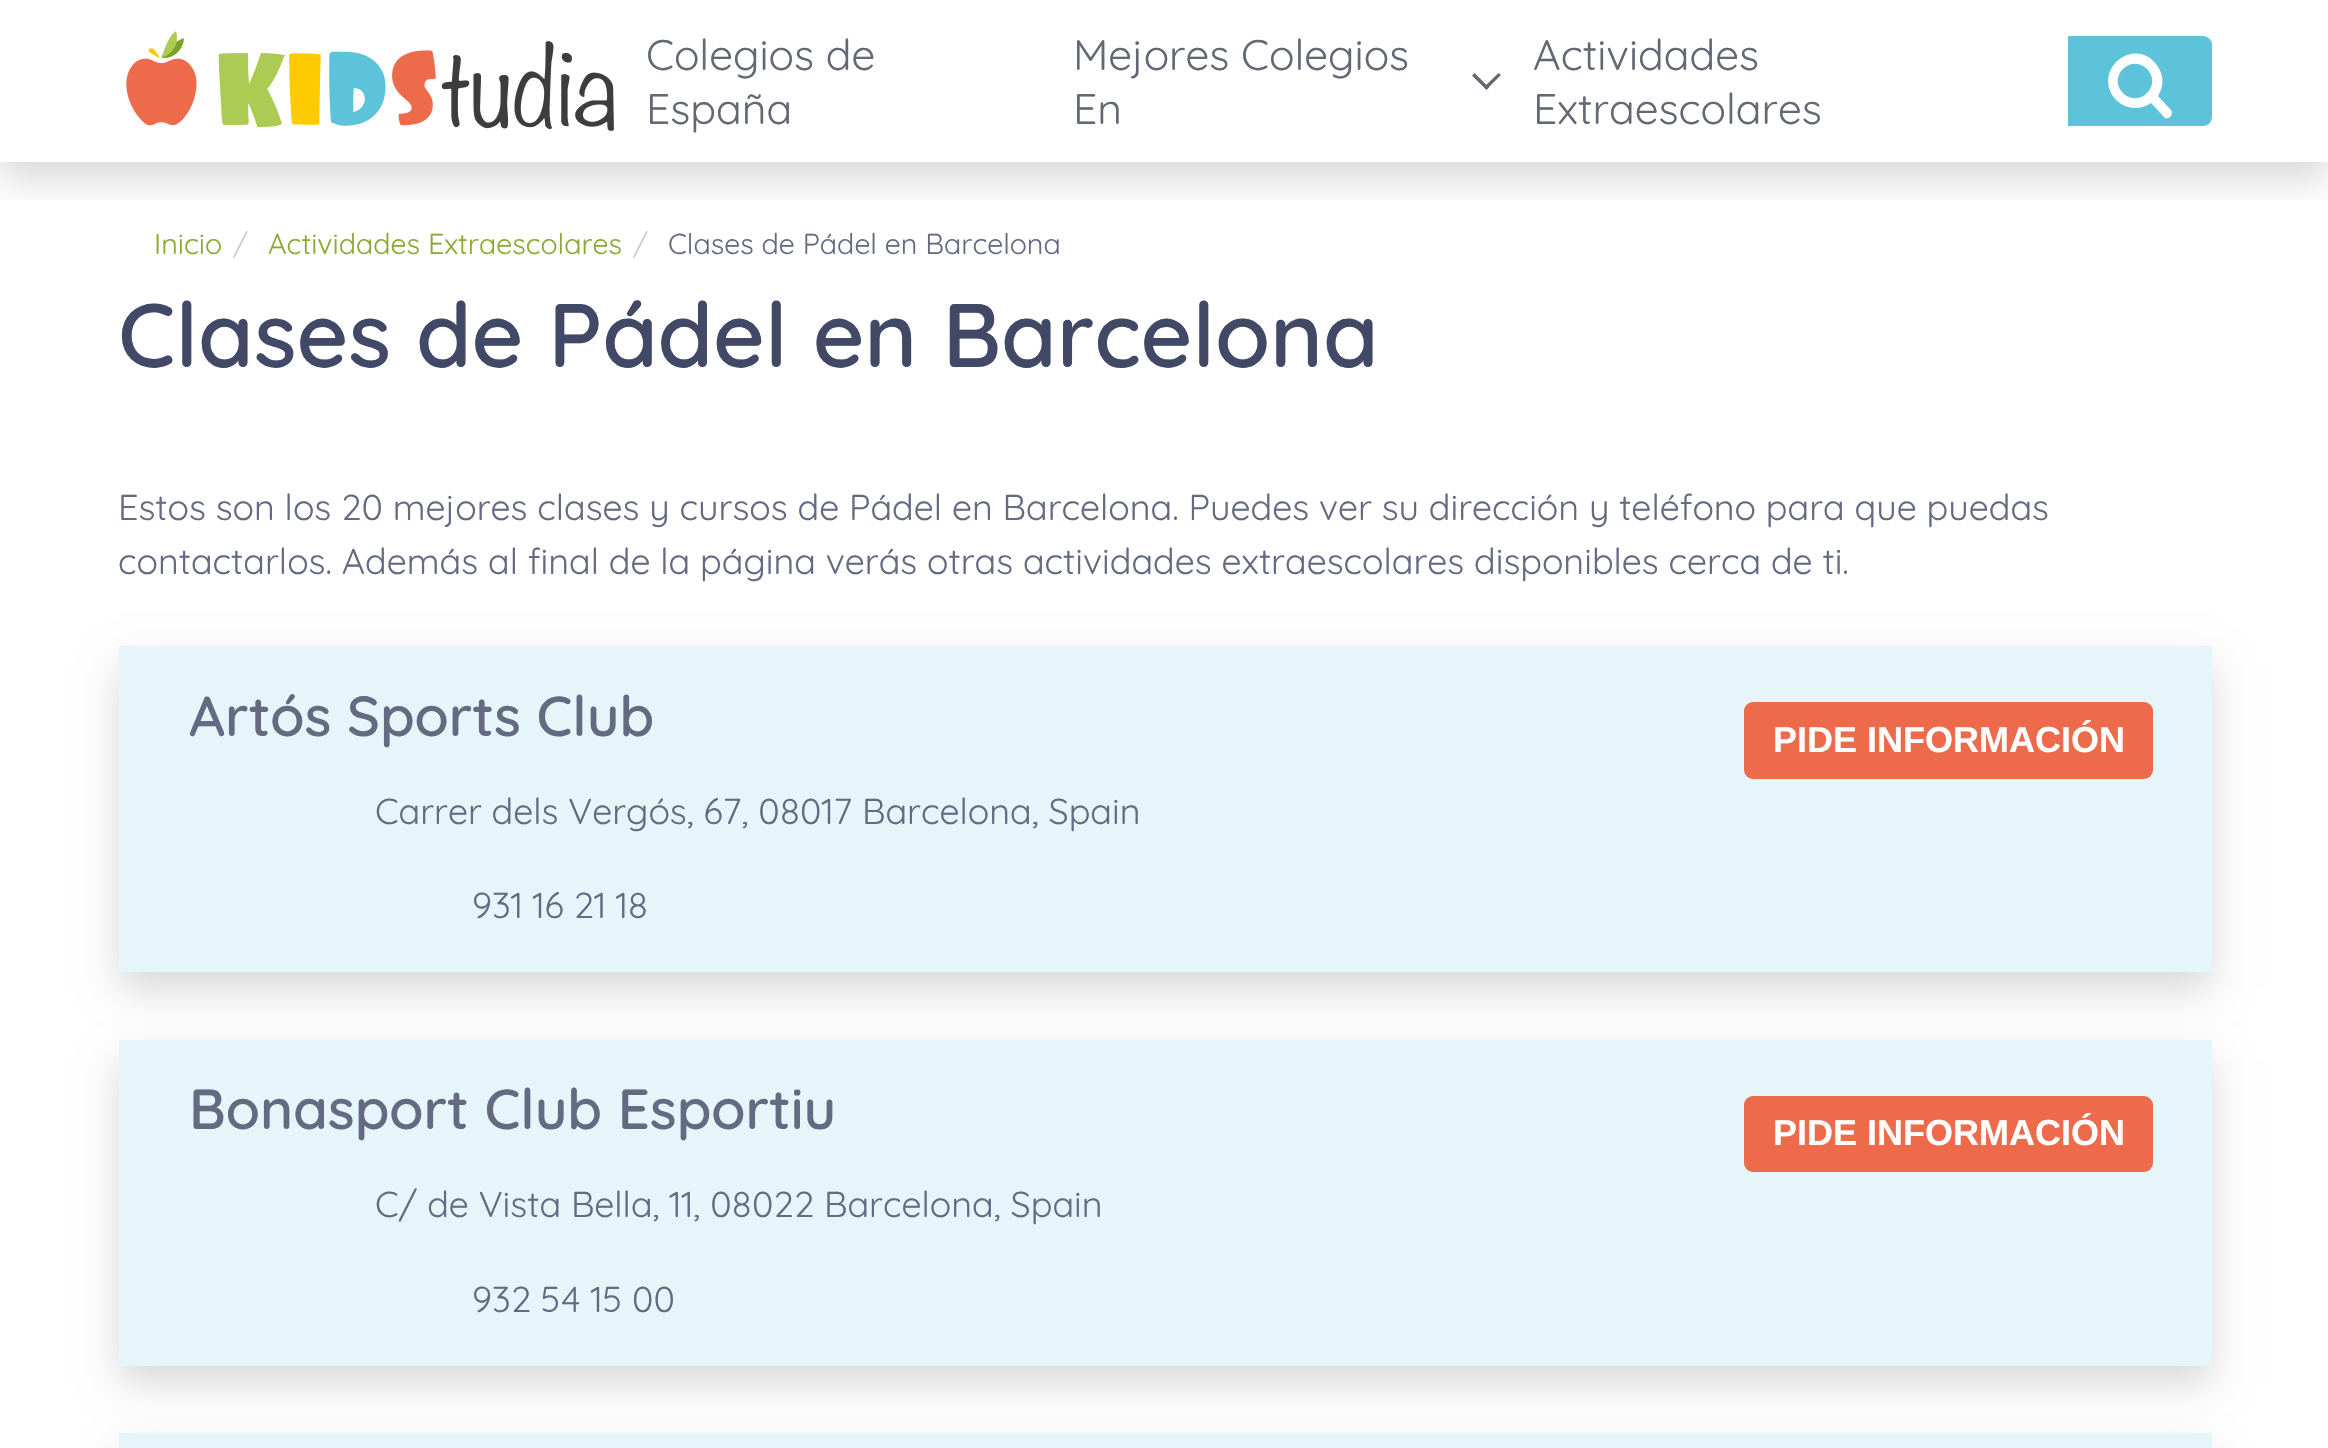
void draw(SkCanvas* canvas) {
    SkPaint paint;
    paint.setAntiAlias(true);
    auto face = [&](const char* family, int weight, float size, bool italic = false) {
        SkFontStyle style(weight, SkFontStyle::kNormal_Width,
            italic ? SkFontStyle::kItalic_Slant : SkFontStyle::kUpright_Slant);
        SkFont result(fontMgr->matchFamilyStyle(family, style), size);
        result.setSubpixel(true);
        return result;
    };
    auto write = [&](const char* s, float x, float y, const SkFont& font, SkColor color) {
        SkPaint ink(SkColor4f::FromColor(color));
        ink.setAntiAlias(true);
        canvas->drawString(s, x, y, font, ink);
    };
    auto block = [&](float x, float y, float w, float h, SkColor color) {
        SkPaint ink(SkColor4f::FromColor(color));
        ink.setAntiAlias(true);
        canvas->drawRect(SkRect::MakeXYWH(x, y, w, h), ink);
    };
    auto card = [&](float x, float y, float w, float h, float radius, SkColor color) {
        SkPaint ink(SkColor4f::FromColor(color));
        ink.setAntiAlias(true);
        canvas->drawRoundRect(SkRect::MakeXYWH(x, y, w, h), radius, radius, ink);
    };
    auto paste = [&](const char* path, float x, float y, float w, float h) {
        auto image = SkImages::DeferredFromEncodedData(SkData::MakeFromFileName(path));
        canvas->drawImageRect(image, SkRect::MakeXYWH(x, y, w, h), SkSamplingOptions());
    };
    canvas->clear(SK_ColorWHITE);
    canvas->save();
    canvas->clipRect(SkRect::MakeXYWH(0, 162, 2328, 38));
    paint.setColor(SkColorSetARGB(38, 0, 0, 0));
    paint.setMaskFilter(SkMaskFilter::MakeBlur(kNormal_SkBlurStyle, 18));
    canvas->drawRect(SkRect::MakeXYWH(0, 18, 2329, 162), paint);
    paint.setMaskFilter(nullptr);
    canvas->restore();
    paste("pic1.png", 126, 31, 488, 100);
    auto kFont1 = face("Quicksand", 400, 42.75f);
    write("Colegios de", 646, 70, kFont1, SkColorSetRGB(98, 104, 116));
    write("España", 646, 124, kFont1, SkColorSetRGB(98, 104, 116));
    paint.setColor(SkColorSetRGB(98, 104, 116));
    canvas->drawPath(SkPathBuilder().moveTo(1472, 75.5f).lineTo(1474.5f, 73).lineTo(1489, 87.5f).lineTo(1486.5f, 90).close().detach(), paint);
    canvas->drawPath(SkPathBuilder().moveTo(1486.5f, 89.5f).lineTo(1484, 87).lineTo(1498.5f, 73).lineTo(1501, 75).close().detach(), paint);
    write("Mejores Colegios", 1073, 70, kFont1, SkColorSetRGB(98, 104, 116));
    write("En", 1073, 124, kFont1, SkColorSetRGB(98, 104, 116));
    write("Actividades", 1533, 70, kFont1, SkColorSetRGB(98, 104, 116));
    write("Extraescolares", 1533, 124, kFont1, SkColorSetRGB(98, 104, 116));
    paint.setColor(SkColorSetRGB(93, 195, 218));
    canvas->drawPath(SkPathBuilder().moveTo(2068, 36).lineTo(2203, 36).cubicTo(2208, 36, 2212, 40, 2212, 45).lineTo(2212, 117).cubicTo(2212, 122, 2208, 126, 2203, 126).lineTo(2068, 126).close().detach(), paint);
    paint.setColor(SK_ColorWHITE);
    canvas->drawPath(SkPathBuilder().moveTo(2171, 110).lineTo(2158, 96).cubicTo(2162, 90, 2164, 81, 2161, 73).cubicTo(2159, 67, 2155, 62, 2150, 58).cubicTo(2128, 43, 2099, 68, 2111, 93).cubicTo(2118, 107, 2137, 113, 2151, 103).lineTo(2165, 118).cubicTo(2170, 120, 2174, 113, 2171, 110).close().moveTo(2147, 93).cubicTo(2131, 109, 2107, 85, 2123, 69).cubicTo(2139, 53, 2163, 77, 2147, 93).close().detach(), paint);
    auto kFont2 = face("Quicksand", 400, 28.75f);
    write("Inicio", 154, 254, kFont2, SkColorSetRGB(138, 170, 51));
    write("/", 233, 254, kFont2, SkColorSetRGB(204, 204, 204));
    write("Actividades Extraescolares", 268, 254, kFont2, SkColorSetRGB(138, 170, 51));
    write("/", 633, 254, kFont2, SkColorSetRGB(204, 204, 204));
    write("Clases de Pádel en Barcelona", 668, 254, kFont2, SkColorSetRGB(100, 106, 130));
    auto kFont3 = face("Quicksand", 600, 90);
    write("Clases de Pádel en Barcelona", 118, 367, kFont3, SkColorSetRGB(66, 73, 102));
    auto kFont4 = face("Quicksand", 400, 36);
    write("Estos son los 20 mejores clases y cursos de Pádel en Barcelona. Puedes ver su dirección y teléfono para que puedas", 118, 520, kFont4, SkColorSetRGB(100, 106, 130));
    write("contactarlos. Además al final de la página verás otras actividades extraescolares disponibles cerca de ti.", 118, 574, kFont4, SkColorSetRGB(100, 106, 130));
    paint.setColor(SkColorSetARGB(38, 0, 0, 0));
    paint.setMaskFilter(SkMaskFilter::MakeBlur(kNormal_SkBlurStyle, 18));
    canvas->drawRect(SkRect::MakeXYWH(119, 664, 2093, 326), paint);
    paint.setMaskFilter(nullptr);
    block(119, 646, 2093, 326, SkColorSetRGB(229, 245, 249));
    auto kFont5 = face("Quicksand", 600, 56.25f);
    write("Artós Sports Club", 189, 736, kFont5, SkColorSetRGB(100, 106, 130));
    write("Carrer dels Vergós, 67, 08017 Barcelona, Spain", 375, 824, kFont4, SkColorSetRGB(100, 106, 130));
    write("931 16 21 18", 472, 918, kFont4, SkColorSetRGB(100, 106, 130));
    card(1744, 702, 409, 77, 9, SkColorSetRGB(237, 106, 75));
    auto kFont6 = face("Liberation Sans", 700, 36);
    write("PIDE INFORMACIÓN", 1773, 752, kFont6, SK_ColorWHITE);
    paint.setMaskFilter(SkMaskFilter::MakeBlur(kNormal_SkBlurStyle, 18));
    canvas->drawRect(SkRect::MakeXYWH(119, 1058, 2093, 326), paint);
    paint.setMaskFilter(nullptr);
    block(119, 1040, 2093, 326, SkColorSetRGB(229, 245, 249));
    write("Bonasport Club Esportiu", 189, 1129, kFont5, SkColorSetRGB(100, 106, 130));
    write("C/ de Vista Bella, 11, 08022 Barcelona, Spain", 375, 1217, kFont4, SkColorSetRGB(100, 106, 130));
    write("932 54 15 00", 472, 1312, kFont4, SkColorSetRGB(100, 106, 130));
    card(1744, 1096, 409, 76, 9, SkColorSetRGB(237, 106, 75));
    write("PIDE INFORMACIÓN", 1773, 1145, kFont6, SK_ColorWHITE);
    paint.setMaskFilter(SkMaskFilter::MakeBlur(kNormal_SkBlurStyle, 18));
    canvas->drawRect(SkRect::MakeXYWH(119, 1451, 2093, 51), paint);
    paint.setMaskFilter(nullptr);
    block(119, 1433, 2093, 15, SkColorSetRGB(229, 245, 249));
}
